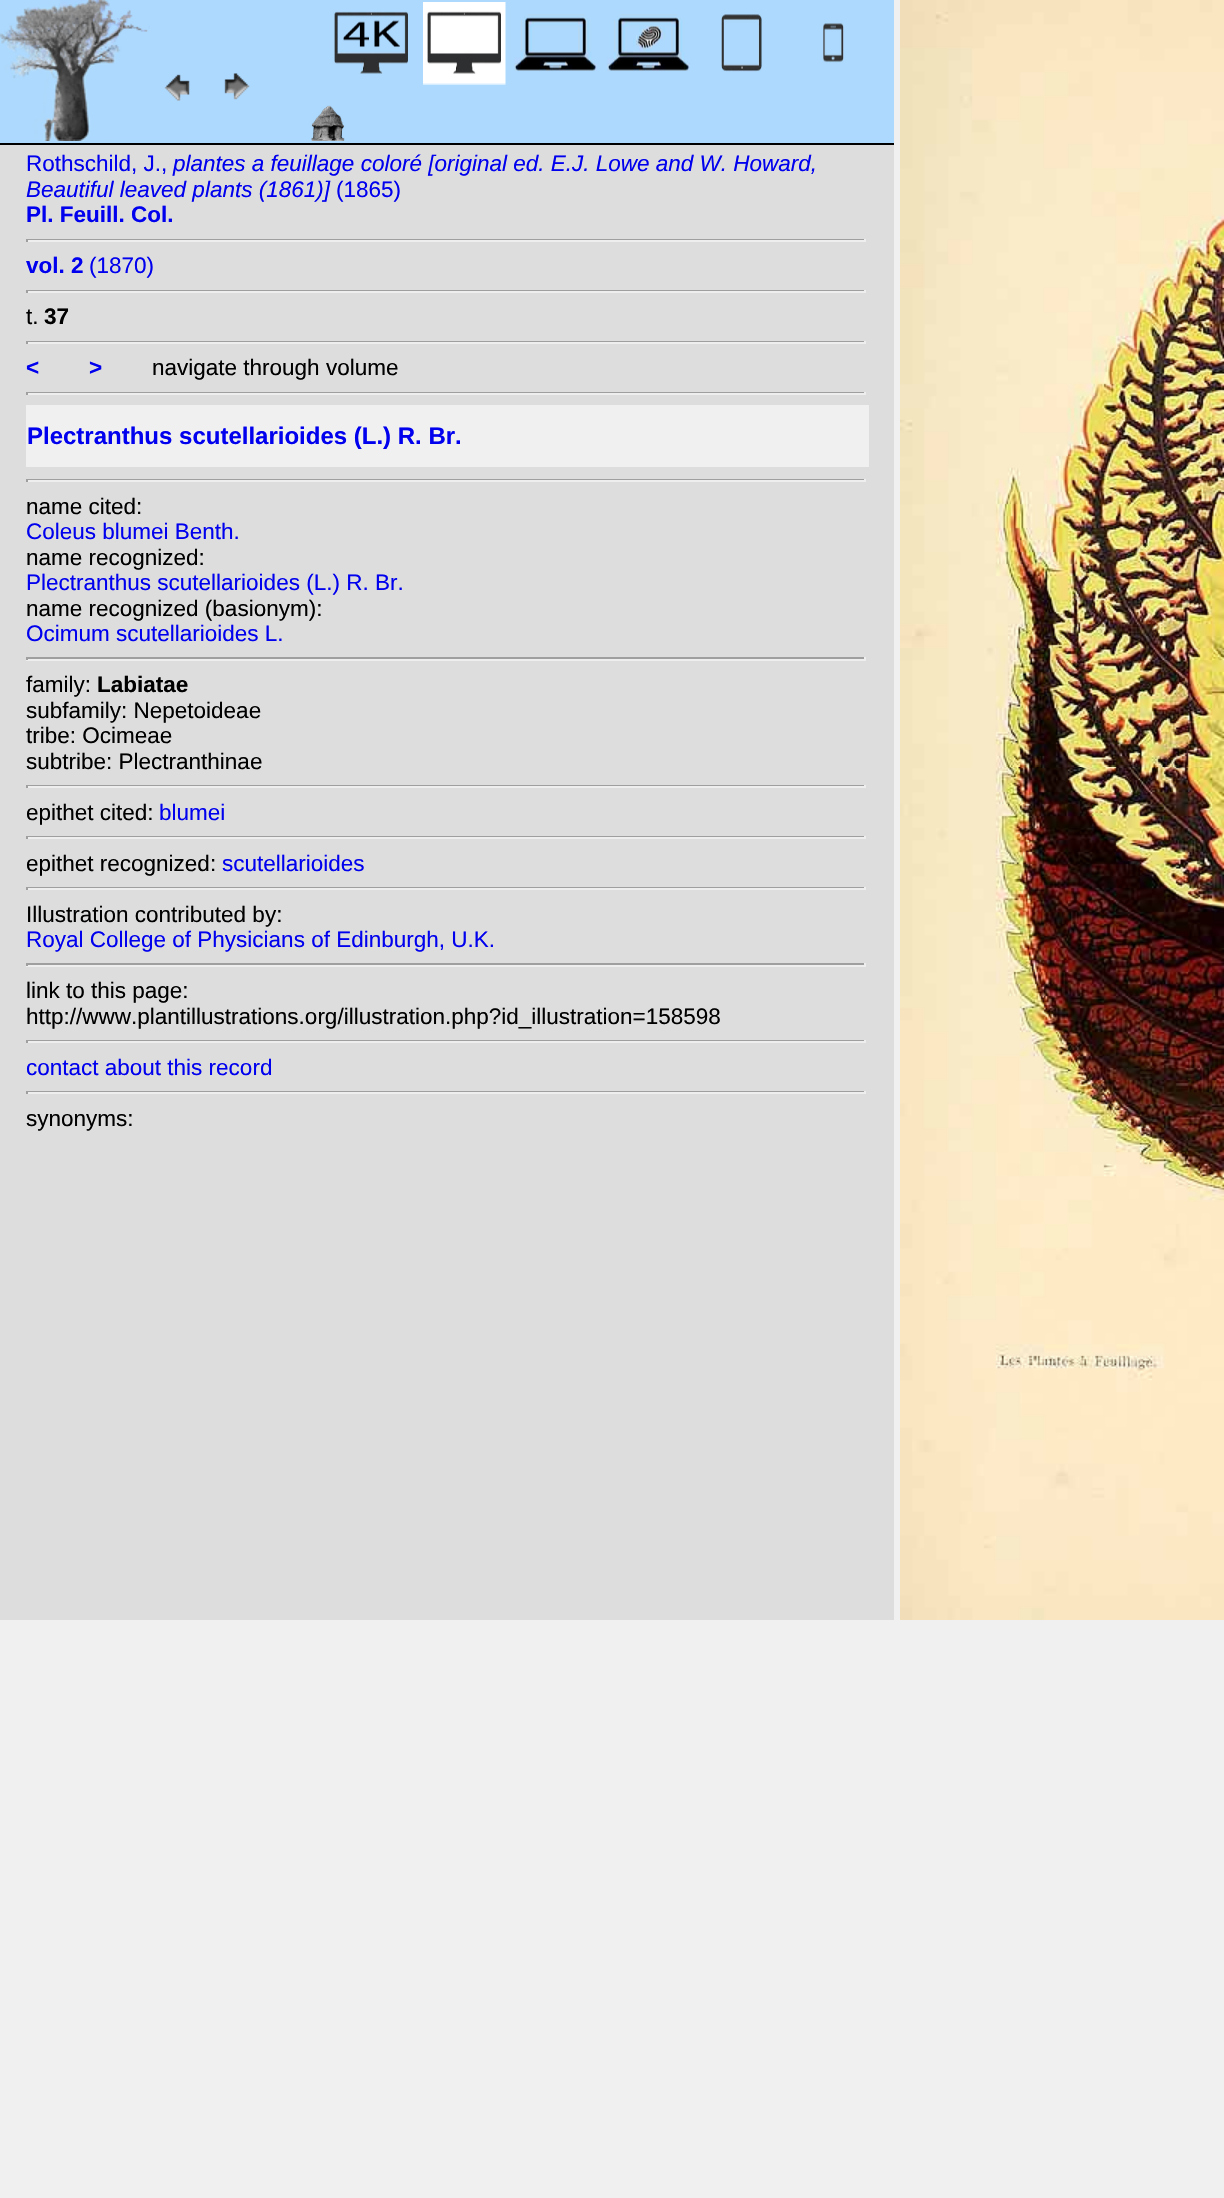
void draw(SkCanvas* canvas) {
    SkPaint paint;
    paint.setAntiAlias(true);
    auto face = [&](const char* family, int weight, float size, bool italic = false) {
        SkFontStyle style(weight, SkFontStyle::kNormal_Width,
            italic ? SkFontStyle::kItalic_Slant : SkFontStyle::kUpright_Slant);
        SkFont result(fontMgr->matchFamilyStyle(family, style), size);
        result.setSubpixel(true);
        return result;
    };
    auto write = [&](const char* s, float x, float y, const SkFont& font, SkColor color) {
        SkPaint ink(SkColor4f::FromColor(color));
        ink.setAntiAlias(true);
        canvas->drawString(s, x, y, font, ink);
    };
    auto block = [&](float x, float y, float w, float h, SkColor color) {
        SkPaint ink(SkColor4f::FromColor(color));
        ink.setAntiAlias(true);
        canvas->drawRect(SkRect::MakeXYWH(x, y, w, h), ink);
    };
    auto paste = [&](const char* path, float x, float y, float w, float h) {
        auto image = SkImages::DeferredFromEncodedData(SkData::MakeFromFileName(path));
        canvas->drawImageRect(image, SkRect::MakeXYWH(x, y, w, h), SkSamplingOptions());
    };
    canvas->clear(SkColorSetRGB(240, 240, 240));
    block(0, 145, 894, 1475, SkColorSetRGB(221, 221, 221));
    block(0, 0, 894, 143, SkColorSetRGB(173, 217, 254));
    block(0, 143, 894, 2, SK_ColorBLACK);
    paste("pic1.png", 0, 0, 150, 141);
    paste("pic2.png", 164, 74, 26, 27);
    paste("pic3.png", 224, 73, 26, 27);
    paste("pic4.png", 333, 11, 75, 63);
    paste("pic5.png", 423, 2, 83, 83);
    paste("pic6.png", 514, 14, 83, 57);
    paste("pic7.png", 607, 14, 83, 57);
    paste("pic8.png", 721, 14, 41, 58);
    paste("pic9.png", 823, 23, 21, 40);
    paste("pic10.png", 311, 105, 34, 36);
    auto kFont1 = face("Liberation Sans", 400, 22.5f);
    write("Rothschild, J.,", 26, 171, kFont1, SkColorSetRGB(0, 0, 238));
    auto kFont2 = face("Liberation Sans", 400, 22.5f, true);
    write("plantes a feuillage coloré [original ed. E.J. Lowe and W. Howard,", 173, 171, kFont2, SkColorSetRGB(0, 0, 238));
    write("Beautiful leaved plants (1861)]", 26, 197, kFont2, SkColorSetRGB(0, 0, 238));
    write("(1865)", 336, 197, kFont1, SkColorSetRGB(0, 0, 238));
    auto kFont3 = face("Liberation Sans", 700, 22.5f);
    write("Pl. Feuill. Col.", 26, 222, kFont3, SkColorSetRGB(0, 0, 238));
    block(26, 239, 840, 1, SkColorSetRGB(159, 159, 159));
    block(864, 239, 2, 3, SkColorSetRGB(238, 238, 238));
    block(26, 240, 840, 2, SkColorSetRGB(238, 238, 238));
    block(26, 239, 2, 3, SkColorSetRGB(159, 159, 159));
    write("vol. 2", 26, 273, kFont3, SkColorSetRGB(0, 0, 238));
    write("(1870)", 89, 273, kFont1, SkColorSetRGB(0, 0, 238));
    block(26, 290, 840, 1, SkColorSetRGB(159, 159, 159));
    block(864, 290, 2, 3, SkColorSetRGB(238, 238, 238));
    block(26, 291, 840, 2, SkColorSetRGB(238, 238, 238));
    block(26, 290, 2, 3, SkColorSetRGB(159, 159, 159));
    write("t.", 26, 324, kFont1, SK_ColorBLACK);
    write("37", 44, 324, kFont3, SK_ColorBLACK);
    block(26, 341, 840, 1, SkColorSetRGB(159, 159, 159));
    block(864, 341, 2, 3, SkColorSetRGB(238, 238, 238));
    block(26, 342, 840, 2, SkColorSetRGB(238, 238, 238));
    block(26, 341, 2, 3, SkColorSetRGB(159, 159, 159));
    write("<", 26, 375, kFont3, SkColorSetRGB(0, 0, 238));
    write(">", 89, 375, kFont3, SkColorSetRGB(0, 0, 238));
    write("navigate through volume", 152, 375, kFont1, SK_ColorBLACK);
    block(26, 392, 840, 1, SkColorSetRGB(159, 159, 159));
    block(864, 392, 2, 3, SkColorSetRGB(238, 238, 238));
    block(26, 393, 840, 2, SkColorSetRGB(238, 238, 238));
    block(26, 392, 2, 3, SkColorSetRGB(159, 159, 159));
    block(26, 405, 843, 62, SkColorSetRGB(240, 240, 240));
    auto kFont4 = face("Liberation Sans", 700, 24);
    write("Plectranthus scutellarioides (L.) R. Br.", 27, 444, kFont4, SkColorSetRGB(0, 0, 238));
    block(26, 479, 840, 1, SkColorSetRGB(159, 159, 159));
    block(864, 479, 2, 3, SkColorSetRGB(238, 238, 238));
    block(26, 480, 840, 2, SkColorSetRGB(238, 238, 238));
    block(26, 479, 2, 3, SkColorSetRGB(159, 159, 159));
    write("name cited:", 26, 514, kFont1, SK_ColorBLACK);
    write("Coleus blumei Benth.", 26, 539, kFont1, SkColorSetRGB(0, 0, 238));
    write("name recognized:", 26, 565, kFont1, SK_ColorBLACK);
    write("Plectranthus scutellarioides (L.) R. Br.", 26, 590, kFont1, SkColorSetRGB(0, 0, 238));
    write("name recognized (basionym):", 26, 616, kFont1, SK_ColorBLACK);
    write("Ocimum scutellarioides L.", 26, 641, kFont1, SkColorSetRGB(0, 0, 238));
    block(26, 657, 840, 2, SkColorSetRGB(159, 159, 159));
    block(864, 657, 2, 3, SkColorSetRGB(238, 238, 238));
    block(26, 659, 840, 2, SkColorSetRGB(238, 238, 238));
    block(26, 657, 2, 3, SkColorSetRGB(159, 159, 159));
    write("family:", 26, 692, kFont1, SK_ColorBLACK);
    write("Labiatae", 97, 692, kFont3, SK_ColorBLACK);
    write("subfamily: Nepetoideae", 26, 718, kFont1, SK_ColorBLACK);
    write("tribe: Ocimeae", 26, 743, kFont1, SK_ColorBLACK);
    write("subtribe: Plectranthinae", 26, 769, kFont1, SK_ColorBLACK);
    block(26, 785, 840, 1, SkColorSetRGB(159, 159, 159));
    block(864, 785, 2, 3, SkColorSetRGB(238, 238, 238));
    block(26, 786, 840, 2, SkColorSetRGB(238, 238, 238));
    block(26, 785, 2, 3, SkColorSetRGB(159, 159, 159));
    write("epithet cited:", 26, 820, kFont1, SK_ColorBLACK);
    write("blumei", 159, 820, kFont1, SkColorSetRGB(0, 0, 238));
    block(26, 836, 840, 1, SkColorSetRGB(159, 159, 159));
    block(864, 836, 2, 3, SkColorSetRGB(238, 238, 238));
    block(26, 837, 840, 2, SkColorSetRGB(238, 238, 238));
    block(26, 836, 2, 3, SkColorSetRGB(159, 159, 159));
    write("epithet recognized:", 26, 871, kFont1, SK_ColorBLACK);
    write("scutellarioides", 222, 871, kFont1, SkColorSetRGB(0, 0, 238));
    block(26, 887, 840, 1, SkColorSetRGB(159, 159, 159));
    block(864, 887, 2, 3, SkColorSetRGB(238, 238, 238));
    block(26, 888, 840, 2, SkColorSetRGB(238, 238, 238));
    block(26, 887, 2, 3, SkColorSetRGB(159, 159, 159));
    write("Illustration contributed by:", 26, 922, kFont1, SK_ColorBLACK);
    write("Royal College of Physicians of Edinburgh, U.K.", 26, 947, kFont1, SkColorSetRGB(0, 0, 238));
    block(26, 963, 840, 2, SkColorSetRGB(159, 159, 159));
    block(864, 963, 2, 3, SkColorSetRGB(238, 238, 238));
    block(26, 965, 840, 2, SkColorSetRGB(238, 238, 238));
    block(26, 963, 2, 3, SkColorSetRGB(159, 159, 159));
    write("link to this page:", 26, 998, kFont1, SK_ColorBLACK);
    write("http://www.plantillustrations.org/illustration.php?id_illustration=158598", 26, 1024, kFont1, SK_ColorBLACK);
    block(26, 1040, 840, 1, SkColorSetRGB(159, 159, 159));
    block(864, 1040, 2, 3, SkColorSetRGB(238, 238, 238));
    block(26, 1041, 840, 2, SkColorSetRGB(238, 238, 238));
    block(26, 1040, 2, 3, SkColorSetRGB(159, 159, 159));
    write("contact about this record", 26, 1075, kFont1, SkColorSetRGB(0, 0, 238));
    block(26, 1091, 840, 1, SkColorSetRGB(159, 159, 159));
    block(864, 1091, 2, 3, SkColorSetRGB(238, 238, 238));
    block(26, 1092, 840, 2, SkColorSetRGB(238, 238, 238));
    block(26, 1091, 2, 3, SkColorSetRGB(159, 159, 159));
    write("synonyms:", 26, 1126, kFont1, SK_ColorBLACK);
    paste("pic11.png", 900, 0, 324, 1620);
}
